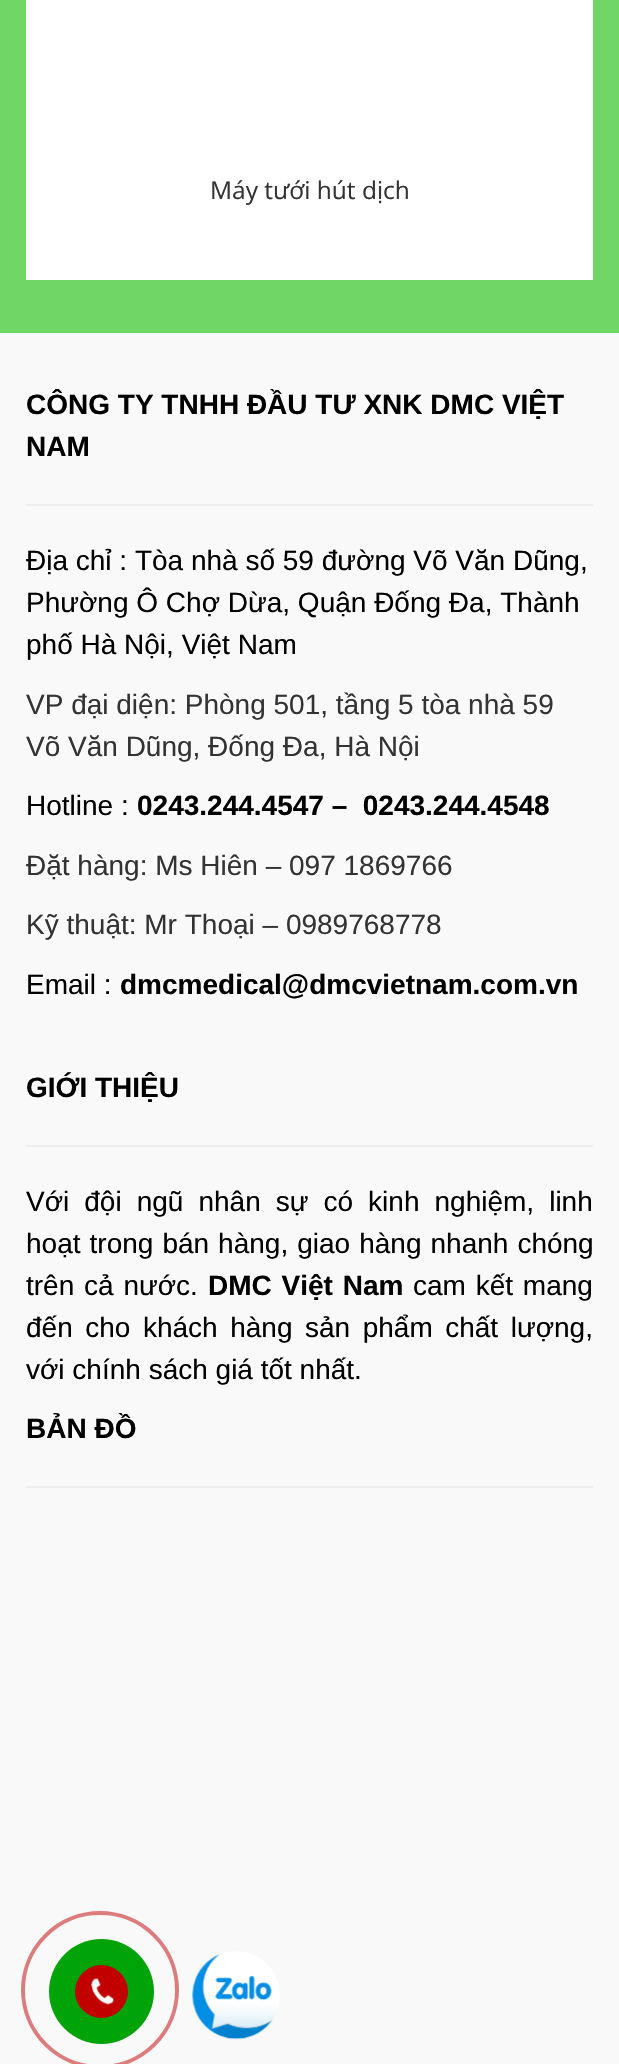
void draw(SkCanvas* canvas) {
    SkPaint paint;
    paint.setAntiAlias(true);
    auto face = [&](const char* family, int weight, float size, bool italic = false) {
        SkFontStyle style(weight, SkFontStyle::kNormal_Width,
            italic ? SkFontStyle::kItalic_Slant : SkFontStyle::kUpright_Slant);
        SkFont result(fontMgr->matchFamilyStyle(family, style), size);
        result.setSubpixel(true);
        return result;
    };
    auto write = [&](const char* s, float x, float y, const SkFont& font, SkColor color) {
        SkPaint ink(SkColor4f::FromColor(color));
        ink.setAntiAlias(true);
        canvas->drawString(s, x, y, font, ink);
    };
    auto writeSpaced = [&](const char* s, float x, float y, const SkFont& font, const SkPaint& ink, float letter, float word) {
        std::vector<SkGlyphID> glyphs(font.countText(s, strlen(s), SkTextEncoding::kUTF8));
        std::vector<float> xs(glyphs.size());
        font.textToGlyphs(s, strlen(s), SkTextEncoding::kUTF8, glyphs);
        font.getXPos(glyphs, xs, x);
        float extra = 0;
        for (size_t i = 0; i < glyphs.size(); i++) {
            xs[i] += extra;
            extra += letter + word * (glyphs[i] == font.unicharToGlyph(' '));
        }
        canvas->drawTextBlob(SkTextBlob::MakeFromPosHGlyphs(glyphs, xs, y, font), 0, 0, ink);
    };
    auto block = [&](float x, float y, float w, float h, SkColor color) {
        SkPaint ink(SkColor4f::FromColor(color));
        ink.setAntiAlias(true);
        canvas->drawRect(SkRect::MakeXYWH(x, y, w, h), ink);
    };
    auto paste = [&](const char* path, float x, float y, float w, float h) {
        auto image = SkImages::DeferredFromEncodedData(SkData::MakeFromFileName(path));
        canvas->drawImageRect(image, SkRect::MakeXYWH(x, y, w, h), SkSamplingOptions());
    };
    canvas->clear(SkColorSetRGB(112, 214, 102));
    block(26, 0, 567, 280, SK_ColorWHITE);
    auto kFont1 = face("Open Sans", 400, 24.5f);
    write("Máy tưới hút dịch", 210, 199, kFont1, SkColorSetRGB(51, 51, 51));
    block(0, 333, 619, 1731, SkColorSetRGB(249, 249, 249));
    auto kFont2 = face("Liberation Sans", 700, 28);
    write("CÔNG TY TNHH ĐẦU TƯ XNK DMC VIỆT", 26, 414, kFont2, SK_ColorBLACK);
    write("NAM", 26, 456, kFont2, SK_ColorBLACK);
    block(26, 504, 567, 2, SkColorSetRGB(238, 238, 238));
    auto kFont3 = face("Liberation Sans", 400, 28);
    write("Địa chỉ : Tòa nhà số 59 đường Võ Văn Dũng,", 26, 570, kFont3, SK_ColorBLACK);
    write("Phường Ô Chợ Dừa, Quận Đống Đa, Thành", 26, 612, kFont3, SK_ColorBLACK);
    write("phố Hà Nội, Việt Nam", 26, 654, kFont3, SK_ColorBLACK);
    write("VP đại diện: Phòng 501, tầng 5 tòa nhà 59", 26, 714, kFont3, SkColorSetRGB(51, 51, 51));
    write("Võ Văn Dũng, Đống Đa, Hà Nội", 26, 756, kFont3, SkColorSetRGB(51, 51, 51));
    write("Hotline :", 26, 815, kFont3, SK_ColorBLACK);
    write("0243.244.4547 –  0243.244.4548", 137, 815, kFont2, SK_ColorBLACK);
    write("Đặt hàng: Ms Hiên – 097 1869766", 26, 875, kFont3, SkColorSetRGB(51, 51, 51));
    write("Kỹ thuật: Mr Thoại – 0989768778", 26, 934, kFont3, SkColorSetRGB(51, 51, 51));
    write("Email :", 26, 994, kFont3, SK_ColorBLACK);
    write("dmcmedical@dmcvietnam.com.vn", 120, 994, kFont2, SK_ColorBLACK);
    write("GIỚI THIỆU", 26, 1097, kFont2, SK_ColorBLACK);
    block(26, 1145, 567, 2, SkColorSetRGB(238, 238, 238));
    paint.setColor(SK_ColorBLACK);
    writeSpaced("Với đội ngũ nhân sự có kinh nghiệm, linh", 26, 1211, kFont3, paint, 0, 7.25f);
    writeSpaced("hoạt trong bán hàng, giao hàng nhanh chóng", 26, 1253, kFont3, paint, 0, 1.25f);
    writeSpaced("trên cả nước.", 26, 1295, kFont3, paint, 0, 2);
    writeSpaced("DMC Việt Nam", 208, 1295, kFont2, paint, 0, 2);
    writeSpaced("cam kết mang", 413, 1295, kFont3, paint, 0, 2);
    writeSpaced("đến cho khách hàng sản phẩm chất lượng,", 26, 1337, kFont3, paint, 0, 4.75f);
    write("với chính sách giá tốt nhất.", 26, 1379, kFont3, SK_ColorBLACK);
    write("BẢN ĐỒ", 26, 1438, kFont2, SK_ColorBLACK);
    block(26, 1486, 567, 2, SkColorSetRGB(238, 238, 238));
    paint.setStyle(SkPaint::kStroke_Style);
    paint.setStrokeWidth(4);
    paint.setColor(SkColorSetRGB(221, 124, 124));
    canvas->drawCircle(100, 1990, 77, paint);
    paint.setStyle(SkPaint::kFill_Style);
    paint.setColor(SkColorSetRGB(0, 163, 8));
    canvas->drawCircle(101.5f, 1991.5f, 52.5f, paint);
    paint.setColor(SkColorSetRGB(194, 0, 0));
    canvas->drawCircle(101.5f, 1991.5f, 26.5f, paint);
    paste("pic1.png", 91, 1978, 23, 27);
    paste("pic2.png", 192, 1951, 88, 89);
}
